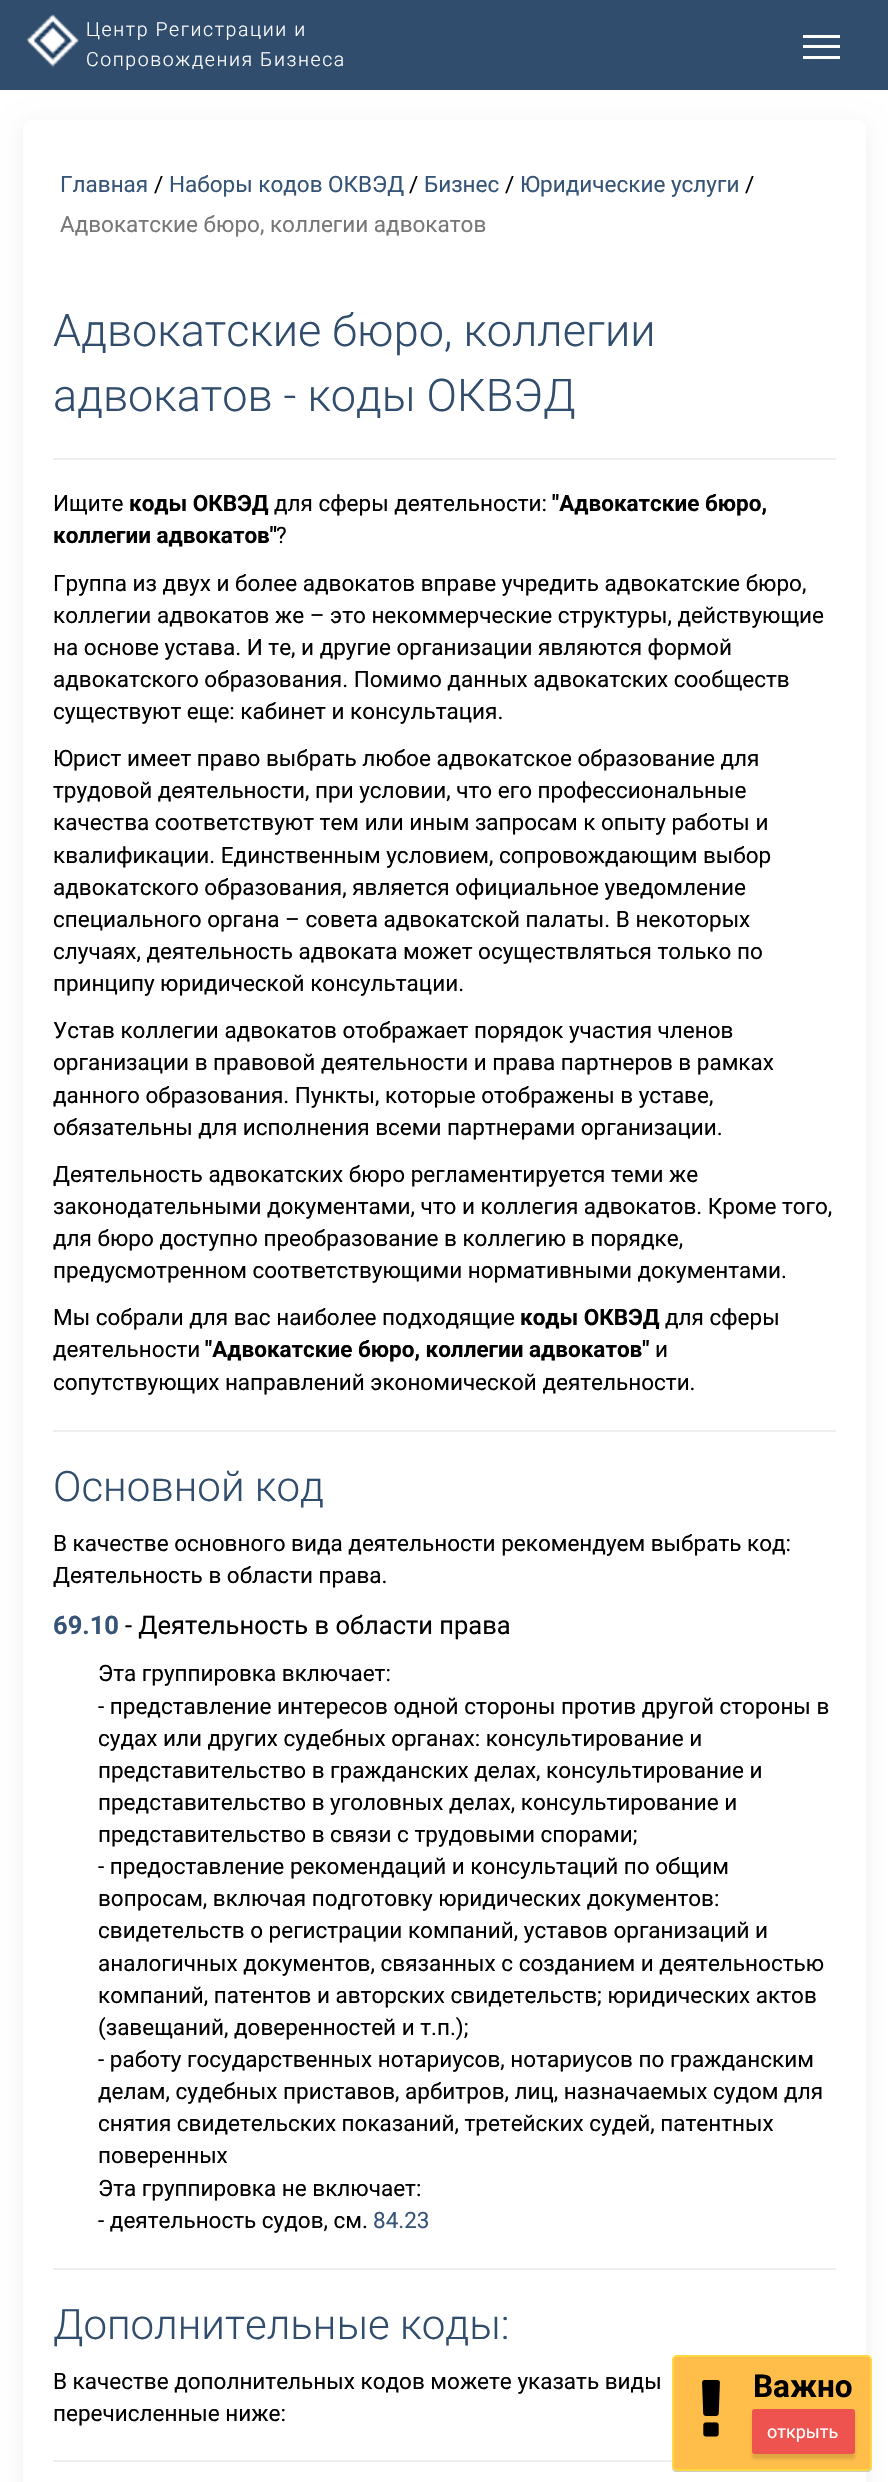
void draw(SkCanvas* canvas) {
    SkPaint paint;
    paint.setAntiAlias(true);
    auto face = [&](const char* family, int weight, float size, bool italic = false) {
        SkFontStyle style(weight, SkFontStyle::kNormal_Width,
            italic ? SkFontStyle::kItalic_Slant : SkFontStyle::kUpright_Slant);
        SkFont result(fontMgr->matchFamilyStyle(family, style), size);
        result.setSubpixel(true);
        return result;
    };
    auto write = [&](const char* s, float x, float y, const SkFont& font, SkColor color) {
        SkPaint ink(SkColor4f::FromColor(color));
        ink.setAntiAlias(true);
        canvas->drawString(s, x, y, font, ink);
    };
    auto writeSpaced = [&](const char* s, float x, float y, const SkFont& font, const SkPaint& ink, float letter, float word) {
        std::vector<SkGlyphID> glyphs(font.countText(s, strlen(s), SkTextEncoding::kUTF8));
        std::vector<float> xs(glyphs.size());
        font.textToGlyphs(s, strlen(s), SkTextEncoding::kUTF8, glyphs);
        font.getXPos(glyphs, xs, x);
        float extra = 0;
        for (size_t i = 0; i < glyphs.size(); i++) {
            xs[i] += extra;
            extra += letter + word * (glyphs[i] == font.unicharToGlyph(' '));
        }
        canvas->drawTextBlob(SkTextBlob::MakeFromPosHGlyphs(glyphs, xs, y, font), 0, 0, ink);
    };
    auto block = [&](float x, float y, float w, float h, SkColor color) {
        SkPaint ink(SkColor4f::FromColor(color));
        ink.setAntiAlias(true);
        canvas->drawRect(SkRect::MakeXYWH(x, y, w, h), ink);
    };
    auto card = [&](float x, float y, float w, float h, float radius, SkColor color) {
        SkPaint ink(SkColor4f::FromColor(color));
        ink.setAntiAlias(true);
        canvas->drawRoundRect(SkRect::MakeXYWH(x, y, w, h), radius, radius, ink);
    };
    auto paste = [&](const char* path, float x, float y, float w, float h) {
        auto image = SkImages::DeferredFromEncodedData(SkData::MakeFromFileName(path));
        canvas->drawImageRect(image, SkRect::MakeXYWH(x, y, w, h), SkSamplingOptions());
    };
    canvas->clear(SK_ColorWHITE);
    paint.setColor(SkColorSetARGB(15, 0, 0, 0));
    paint.setMaskFilter(SkMaskFilter::MakeBlur(kNormal_SkBlurStyle, 11));
    canvas->drawRoundRect(SkRect::MakeXYWH(23, 123, 843, 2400), 8, 8, paint);
    paint.setMaskFilter(nullptr);
    block(0, 0, 888, 90, SkColorSetRGB(49, 77, 109));
    paste("pic1.png", 26, 14, 53, 54);
    auto kFont1 = face("Roboto", 300, 19.5f);
    paint.setColor(SK_ColorWHITE);
    writeSpaced("Центр Регистрации и", 86, 36, kFont1, paint, 1.6f, 0);
    writeSpaced("Сопровождения Бизнеса", 86, 66, kFont1, paint, 1.6f, 0);
    block(803, 35, 37, 3, SK_ColorWHITE);
    block(803, 45, 37, 3, SK_ColorWHITE);
    block(803, 56, 37, 3, SK_ColorWHITE);
    card(23, 120, 843, 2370, 8, SK_ColorWHITE);
    auto kFont2 = face("Roboto", 400, 22.5f);
    write("Главная", 60, 192, kFont2, SkColorSetRGB(53, 84, 119));
    write("/", 154, 192, kFont2, SK_ColorBLACK);
    write("Наборы кодов ОКВЭД", 169, 192, kFont2, SkColorSetRGB(53, 84, 119));
    write("/", 409, 192, kFont2, SK_ColorBLACK);
    write("Бизнес", 424, 192, kFont2, SkColorSetRGB(53, 84, 119));
    write("/", 505, 192, kFont2, SK_ColorBLACK);
    write("Юридические услуги", 520, 192, kFont2, SkColorSetRGB(53, 84, 119));
    write("/", 745, 192, kFont2, SK_ColorBLACK);
    write("Адвокатские бюро, коллегии адвокатов", 60, 232, kFont2, SkColorSetRGB(119, 119, 119));
    auto kFont3 = face("Roboto", 300, 45);
    write("Адвокатские бюро, коллегии", 53, 346, kFont3, SkColorSetRGB(49, 77, 109));
    write("адвокатов - коды ОКВЭД", 53, 411, kFont3, SkColorSetRGB(49, 77, 109));
    block(53, 458, 783, 2, SkColorSetRGB(238, 238, 238));
    write("Ищите", 53, 511, kFont2, SK_ColorBLACK);
    auto kFont4 = face("Roboto", 700, 22.5f);
    write("коды ОКВЭД", 129, 511, kFont4, SK_ColorBLACK);
    write("для сферы деятельности:", 274, 511, kFont2, SK_ColorBLACK);
    write("\"Адвокатские бюро,", 552, 511, kFont4, SK_ColorBLACK);
    write("коллегии адвокатов\"", 53, 543, kFont4, SK_ColorBLACK);
    write("?", 276, 543, kFont2, SK_ColorBLACK);
    write("Группа из двух и более адвокатов вправе учредить адвокатские бюро,", 53, 591, kFont2, SK_ColorBLACK);
    write("коллегии адвокатов же – это некоммерческие структуры, действующие", 53, 623, kFont2, SK_ColorBLACK);
    write("на основе устава. И те, и другие организации являются формой", 53, 655, kFont2, SK_ColorBLACK);
    write("адвокатского образования. Помимо данных адвокатских сообществ", 53, 687, kFont2, SK_ColorBLACK);
    write("существуют еще: кабинет и консультация.", 53, 719, kFont2, SK_ColorBLACK);
    write("Юрист имеет право выбрать любое адвокатское образование для", 53, 766, kFont2, SK_ColorBLACK);
    write("трудовой деятельности, при условии, что его профессиональные", 53, 798, kFont2, SK_ColorBLACK);
    write("качества соответствуют тем или иным запросам к опыту работы и", 53, 830, kFont2, SK_ColorBLACK);
    write("квалификации. Единственным условием, сопровождающим выбор", 53, 863, kFont2, SK_ColorBLACK);
    write("адвокатского образования, является официальное уведомление", 53, 895, kFont2, SK_ColorBLACK);
    write("специального органа – совета адвокатской палаты. В некоторых", 53, 927, kFont2, SK_ColorBLACK);
    write("случаях, деятельность адвоката может осуществляться только по", 53, 959, kFont2, SK_ColorBLACK);
    write("принципу юридической консультации.", 53, 991, kFont2, SK_ColorBLACK);
    write("Устав коллегии адвокатов отображает порядок участия членов", 53, 1038, kFont2, SK_ColorBLACK);
    write("организации в правовой деятельности и права партнеров в рамках", 53, 1070, kFont2, SK_ColorBLACK);
    write("данного образования. Пункты, которые отображены в уставе,", 53, 1103, kFont2, SK_ColorBLACK);
    write("обязательны для исполнения всеми партнерами организации.", 53, 1135, kFont2, SK_ColorBLACK);
    write("Деятельность адвокатских бюро регламентируется теми же", 53, 1182, kFont2, SK_ColorBLACK);
    write("законодательными документами, что и коллегия адвокатов. Кроме того,", 53, 1214, kFont2, SK_ColorBLACK);
    write("для бюро доступно преобразование в коллегию в порядке,", 53, 1246, kFont2, SK_ColorBLACK);
    write("предусмотренном соответствующими нормативными документами.", 53, 1278, kFont2, SK_ColorBLACK);
    write("Мы собрали для вас наиболее подходящие", 53, 1325, kFont2, SK_ColorBLACK);
    write("коды ОКВЭД", 520, 1325, kFont4, SK_ColorBLACK);
    write("для сферы", 665, 1325, kFont2, SK_ColorBLACK);
    write("деятельности", 53, 1357, kFont2, SK_ColorBLACK);
    write("\"Адвокатские бюро, коллегии адвокатов\"", 205, 1357, kFont4, SK_ColorBLACK);
    write("и", 655, 1357, kFont2, SK_ColorBLACK);
    write("сопутствующих направлений экономической деятельности.", 53, 1390, kFont2, SK_ColorBLACK);
    block(53, 1430, 783, 2, SkColorSetRGB(238, 238, 238));
    auto kFont5 = face("Roboto", 300, 42);
    write("Основной код", 53, 1501, kFont5, SkColorSetRGB(49, 77, 109));
    write("В качестве основного вида деятельности рекомендуем выбрать код:", 53, 1551, kFont2, SK_ColorBLACK);
    write("Деятельность в области права.", 53, 1583, kFont2, SK_ColorBLACK);
    auto kFont6 = face("Roboto", 700, 25.5f);
    write("69.10", 53, 1634, kFont6, SkColorSetRGB(53, 84, 119));
    auto kFont7 = face("Roboto", 400, 25.5f);
    write("- Деятельность в области права", 125, 1634, kFont7, SK_ColorBLACK);
    write("Эта группировка включает:", 98, 1681, kFont2, SK_ColorBLACK);
    write("- представление интересов одной стороны против другой стороны в", 98, 1714, kFont2, SK_ColorBLACK);
    write("судах или других судебных органах: консультирование и", 98, 1746, kFont2, SK_ColorBLACK);
    write("представительство в гражданских делах, консультирование и", 98, 1778, kFont2, SK_ColorBLACK);
    write("представительство в уголовных делах, консультирование и", 98, 1810, kFont2, SK_ColorBLACK);
    write("представительство в связи с трудовыми спорами;", 98, 1842, kFont2, SK_ColorBLACK);
    write("- предоставление рекомендаций и консультаций по общим", 98, 1874, kFont2, SK_ColorBLACK);
    write("вопросам, включая подготовку юридических документов:", 98, 1906, kFont2, SK_ColorBLACK);
    write("свидетельств о регистрации компаний, уставов организаций и", 98, 1938, kFont2, SK_ColorBLACK);
    write("аналогичных документов, связанных с созданием и деятельностью", 98, 1971, kFont2, SK_ColorBLACK);
    write("компаний, патентов и авторских свидетельств; юридических актов", 98, 2003, kFont2, SK_ColorBLACK);
    write("(завещаний, доверенностей и т.п.);", 98, 2035, kFont2, SK_ColorBLACK);
    write("- работу государственных нотариусов, нотариусов по гражданским", 98, 2067, kFont2, SK_ColorBLACK);
    write("делам, судебных приставов, арбитров, лиц, назначаемых судом для", 98, 2099, kFont2, SK_ColorBLACK);
    write("снятия свидетельских показаний, третейских судей, патентных", 98, 2131, kFont2, SK_ColorBLACK);
    write("поверенных", 98, 2163, kFont2, SK_ColorBLACK);
    write("Эта группировка не включает:", 98, 2196, kFont2, SK_ColorBLACK);
    write("- деятельность судов, см.", 98, 2228, kFont2, SK_ColorBLACK);
    write("84.23", 373, 2228, kFont2, SkColorSetRGB(53, 84, 119));
    block(53, 2268, 783, 2, SkColorSetRGB(238, 238, 238));
    write("Дополнительные коды:", 53, 2339, kFont5, SkColorSetRGB(49, 77, 109));
    write("В качестве дополнительных кодов можете указать виды", 53, 2389, kFont2, SK_ColorBLACK);
    write("перечисленные ниже:", 53, 2421, kFont2, SK_ColorBLACK);
    block(53, 2460, 619, 2, SkColorSetRGB(238, 238, 238));
    paint.setColor(SkColorSetARGB(51, 0, 0, 0));
    canvas->drawPath(SkPathBuilder().moveTo(672, 2466).lineTo(672, 2467).cubicTo(672, 2470, 674, 2472, 677, 2472).lineTo(867, 2472).cubicTo(870, 2472, 872, 2470, 872, 2467).lineTo(872, 2362).lineTo(872, 2360).lineTo(872, 2466).cubicTo(872, 2468, 869, 2470, 867, 2470).lineTo(676, 2470).cubicTo(674, 2470, 672, 2468, 672, 2466).close().detach(), paint);
    paint.setColor(SkColorSetRGB(255, 189, 74));
    canvas->drawRoundRect(SkRect::MakeXYWH(673, 2356, 198, 114), 4, 4, paint);
    paint.setStyle(SkPaint::kStroke_Style);
    paint.setStrokeWidth(2);
    paint.setColor(SkColorSetRGB(255, 215, 64));
    canvas->drawRoundRect(SkRect::MakeXYWH(673, 2356, 198, 114), 4, 4, paint);
    paste("pic2.png", 702, 2380, 18, 57);
    auto kFont8 = face("Roboto", 700, 31.5f);
    write("Важно", 753, 2397, kFont8, SK_ColorBLACK);
    paint.setStyle(SkPaint::kFill_Style);
    paint.setColor(SkColorSetARGB(31, 0, 0, 0));
    paint.setMaskFilter(SkMaskFilter::MakeBlur(kNormal_SkBlurStyle, 1.5f));
    canvas->drawRoundRect(SkRect::MakeXYWH(752, 2414, 103, 45), 3, 3, paint);
    paint.setMaskFilter(nullptr);
    paint.setColor(SkColorSetRGB(239, 83, 80));
    canvas->drawRoundRect(SkRect::MakeXYWH(753, 2410, 101, 43), 2, 2, paint);
    paint.setStyle(SkPaint::kStroke_Style);
    canvas->drawRoundRect(SkRect::MakeXYWH(753, 2410, 101, 43), 2, 2, paint);
    auto kFont9 = face("Roboto", 400, 18);
    write("открыть", 767, 2438, kFont9, SK_ColorWHITE);
}
